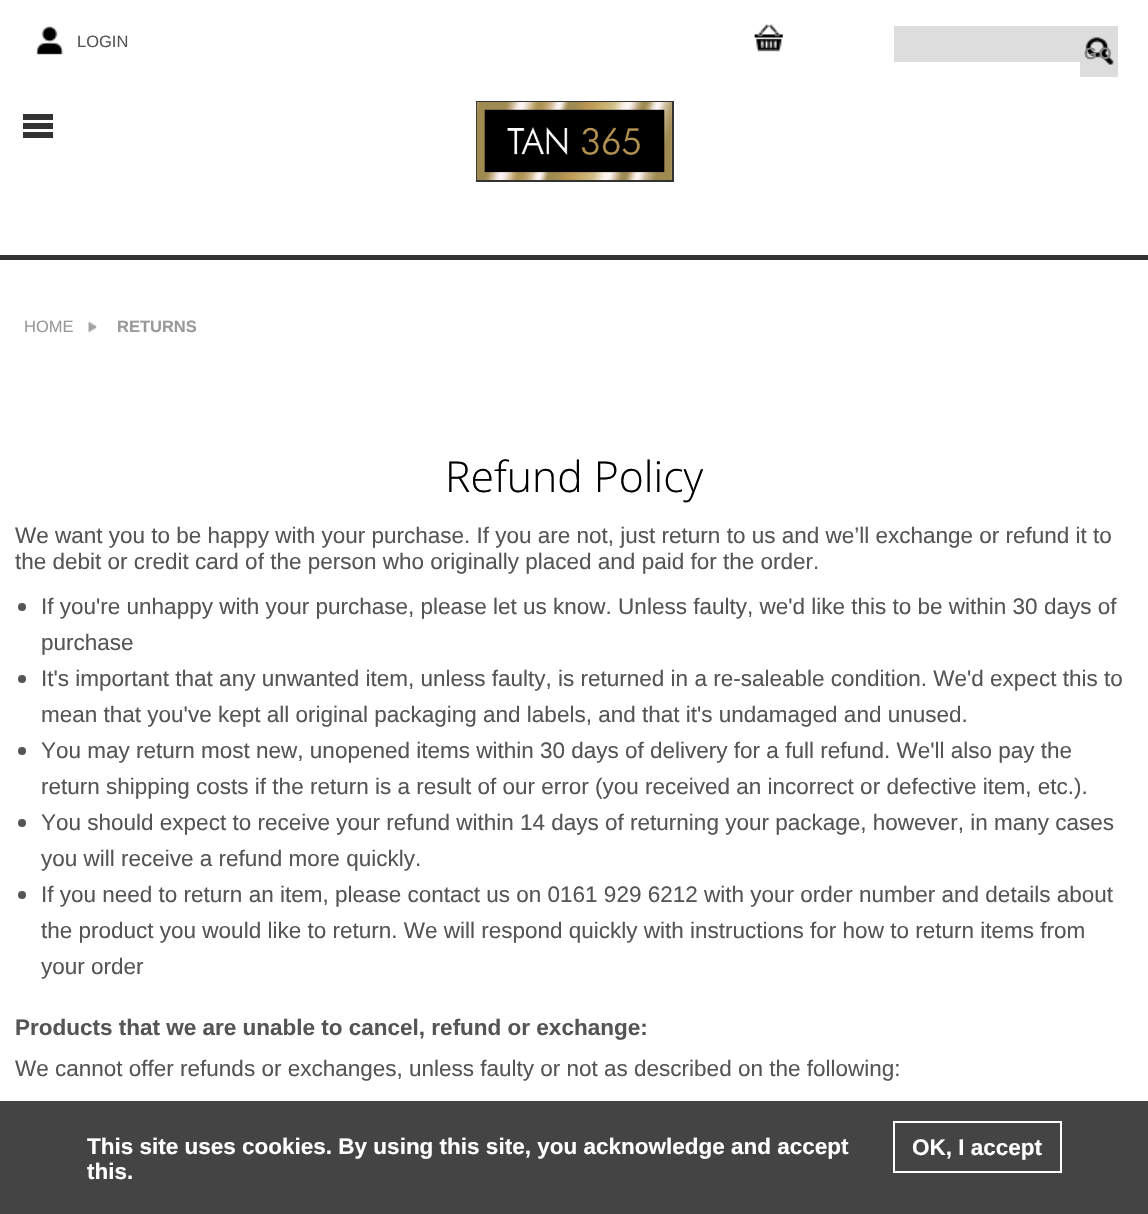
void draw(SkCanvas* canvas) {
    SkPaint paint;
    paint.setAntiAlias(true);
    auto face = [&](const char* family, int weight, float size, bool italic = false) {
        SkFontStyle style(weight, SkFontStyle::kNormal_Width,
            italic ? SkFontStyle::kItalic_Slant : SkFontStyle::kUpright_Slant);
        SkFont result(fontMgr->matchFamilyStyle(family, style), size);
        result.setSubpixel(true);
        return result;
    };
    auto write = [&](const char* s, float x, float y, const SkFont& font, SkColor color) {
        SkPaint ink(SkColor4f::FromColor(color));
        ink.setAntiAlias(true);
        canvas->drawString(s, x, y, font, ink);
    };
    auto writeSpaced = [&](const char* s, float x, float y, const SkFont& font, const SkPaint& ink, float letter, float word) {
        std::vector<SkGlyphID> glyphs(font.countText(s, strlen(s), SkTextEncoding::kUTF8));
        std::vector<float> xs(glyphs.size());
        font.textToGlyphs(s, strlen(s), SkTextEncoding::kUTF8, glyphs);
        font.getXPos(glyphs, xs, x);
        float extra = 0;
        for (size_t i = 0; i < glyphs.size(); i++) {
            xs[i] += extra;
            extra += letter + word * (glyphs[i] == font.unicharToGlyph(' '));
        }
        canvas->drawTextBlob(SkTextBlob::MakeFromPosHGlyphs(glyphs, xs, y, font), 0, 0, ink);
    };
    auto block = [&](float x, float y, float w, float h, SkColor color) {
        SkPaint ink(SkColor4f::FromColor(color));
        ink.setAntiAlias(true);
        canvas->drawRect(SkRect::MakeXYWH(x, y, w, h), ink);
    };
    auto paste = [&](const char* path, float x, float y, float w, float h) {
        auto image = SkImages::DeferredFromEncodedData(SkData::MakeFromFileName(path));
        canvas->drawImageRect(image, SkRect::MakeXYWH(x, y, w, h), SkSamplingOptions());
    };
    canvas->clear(SK_ColorWHITE);
    paste("pic1.png", 36, 26, 28, 29);
    auto kFont1 = face("Liberation Sans", 400, 16.5f);
    write("LOGIN", 77, 47, kFont1, SkColorSetRGB(85, 85, 85));
    paste("pic2.png", 754, 23, 30, 29);
    block(894, 26, 186, 36, SkColorSetRGB(221, 221, 221));
    block(1080, 26, 38, 51, SkColorSetRGB(221, 221, 221));
    paste("pic3.png", 1085, 37, 29, 28);
    auto kFont2 = face("Liberation Sans", 700, 16.5f);
    paint.setColor(SkColorSetRGB(132, 132, 132));
    writeSpaced("GO", 1084, 59, kFont2, paint, 2, 0);
    block(23, 132, 30, 6, SkColorSetRGB(51, 51, 51));
    block(23, 123, 30, 6, SkColorSetRGB(51, 51, 51));
    block(23, 114, 30, 6, SkColorSetRGB(51, 51, 51));
    paint.setStyle(SkPaint::kStroke_Style);
    paint.setStrokeWidth(2);
    paint.setColor(SkColorSetRGB(51, 51, 51));
    canvas->drawRect(SkRect::MakeXYWH(477, 102, 196, 79), paint);
    paste("pic4.png", 476, 102, 196, 78);
    block(0, 255, 1148, 5, SkColorSetRGB(51, 51, 51));
    paste("pic5.png", 88, 321, 9, 13);
    write("HOME", 24, 332, kFont1, SkColorSetRGB(153, 153, 153));
    write("RETURNS", 117, 332, kFont2, SkColorSetRGB(153, 153, 153));
    auto kFont3 = face("Open Sans", 300, 42.75f);
    write("Refund Policy", 445, 492, kFont3, SK_ColorBLACK);
    auto kFont4 = face("Liberation Sans", 400, 22.5f);
    write("We want you to be happy with your purchase. If you are not, just return to us and we’ll exchange or refund it to", 15, 543, kFont4, SkColorSetRGB(85, 85, 85));
    write("the debit or credit card of the person who originally placed and paid for the order.", 15, 569, kFont4, SkColorSetRGB(85, 85, 85));
    paint.setStyle(SkPaint::kFill_Style);
    paint.setColor(SkColorSetRGB(85, 85, 85));
    canvas->drawCircle(22, 607, 4, paint);
    write("If you're unhappy with your purchase, please let us know. Unless faulty, we'd like this to be within 30 days of", 41, 614, kFont4, SkColorSetRGB(85, 85, 85));
    write("purchase", 41, 650, kFont4, SkColorSetRGB(85, 85, 85));
    canvas->drawCircle(22, 679, 4, paint);
    write("It's important that any unwanted item, unless faulty, is returned in a re-saleable condition. We'd expect this to", 41, 686, kFont4, SkColorSetRGB(85, 85, 85));
    write("mean that you've kept all original packaging and labels, and that it's undamaged and unused.", 41, 722, kFont4, SkColorSetRGB(85, 85, 85));
    canvas->drawCircle(22, 751, 4, paint);
    write("You may return most new, unopened items within 30 days of delivery for a full refund. We'll also pay the", 41, 758, kFont4, SkColorSetRGB(85, 85, 85));
    write("return shipping costs if the return is a result of our error (you received an incorrect or defective item, etc.).", 41, 794, kFont4, SkColorSetRGB(85, 85, 85));
    canvas->drawCircle(22, 823, 4, paint);
    write("You should expect to receive your refund within 14 days of returning your package, however, in many cases", 41, 830, kFont4, SkColorSetRGB(85, 85, 85));
    write("you will receive a refund more quickly.", 41, 866, kFont4, SkColorSetRGB(85, 85, 85));
    canvas->drawCircle(22, 895, 4, paint);
    write("If you need to return an item, please contact us on 0161 929 6212 with your order number and details about", 41, 902, kFont4, SkColorSetRGB(85, 85, 85));
    write("the product you would like to return. We will respond quickly with instructions for how to return items from", 41, 938, kFont4, SkColorSetRGB(85, 85, 85));
    write("your order", 41, 974, kFont4, SkColorSetRGB(85, 85, 85));
    auto kFont5 = face("Liberation Sans", 700, 22.5f);
    write("Products that we are unable to cancel, refund or exchange:", 15, 1035, kFont5, SkColorSetRGB(85, 85, 85));
    write("We cannot offer refunds or exchanges, unless faulty or not as described on the following:", 15, 1076, kFont4, SkColorSetRGB(85, 85, 85));
    block(0, 1101, 1148, 113, SkColorSetRGB(68, 68, 68));
    write("This site uses cookies. By using this site, you acknowledge and accept", 87, 1154, kFont5, SK_ColorWHITE);
    write("this.", 87, 1179, kFont5, SK_ColorWHITE);
    paint.setStyle(SkPaint::kStroke_Style);
    paint.setColor(SK_ColorWHITE);
    canvas->drawRect(SkRect::MakeXYWH(894, 1122, 167, 50), paint);
    write("OK, I accept", 912, 1155, kFont5, SK_ColorWHITE);
}
